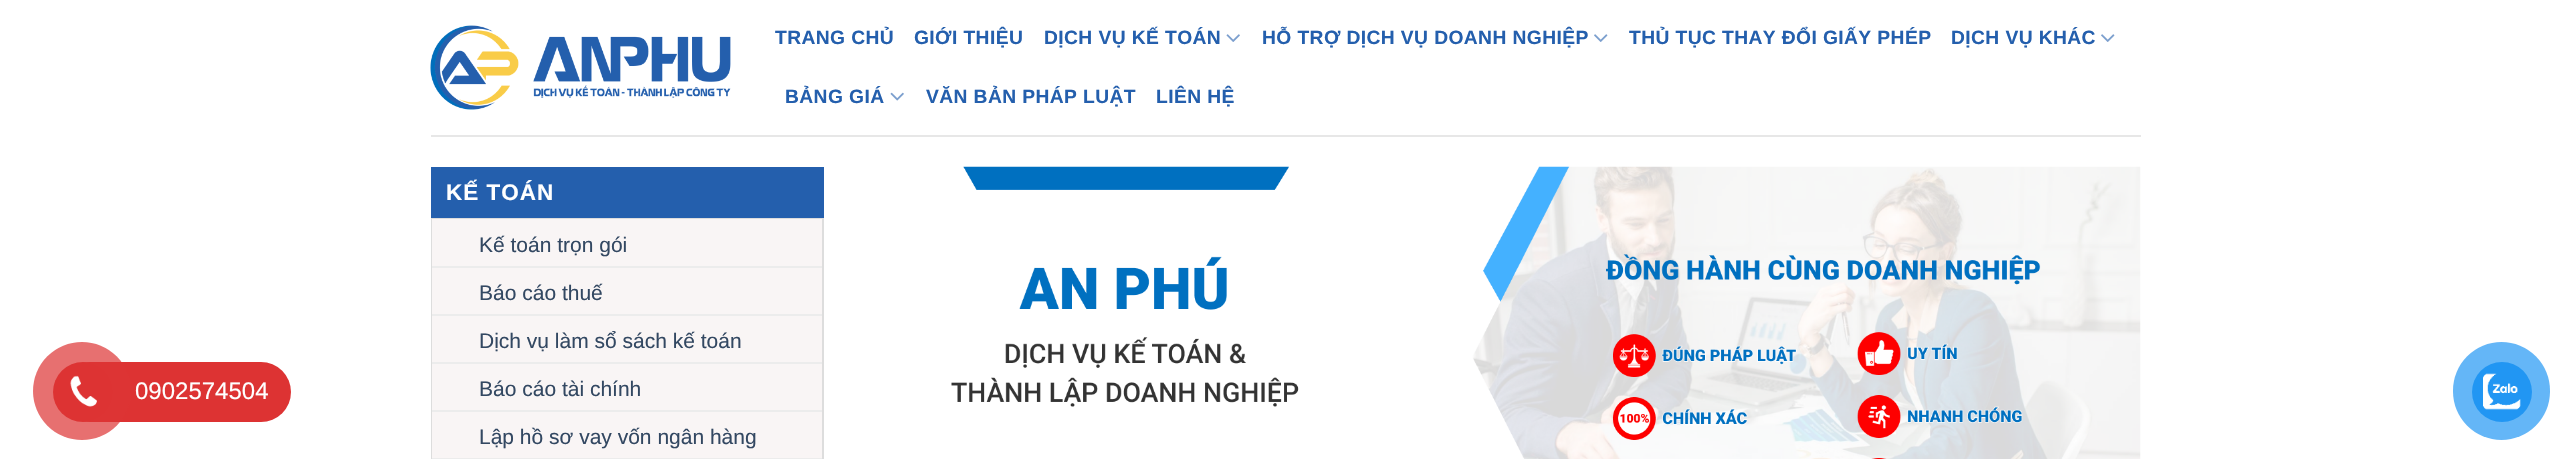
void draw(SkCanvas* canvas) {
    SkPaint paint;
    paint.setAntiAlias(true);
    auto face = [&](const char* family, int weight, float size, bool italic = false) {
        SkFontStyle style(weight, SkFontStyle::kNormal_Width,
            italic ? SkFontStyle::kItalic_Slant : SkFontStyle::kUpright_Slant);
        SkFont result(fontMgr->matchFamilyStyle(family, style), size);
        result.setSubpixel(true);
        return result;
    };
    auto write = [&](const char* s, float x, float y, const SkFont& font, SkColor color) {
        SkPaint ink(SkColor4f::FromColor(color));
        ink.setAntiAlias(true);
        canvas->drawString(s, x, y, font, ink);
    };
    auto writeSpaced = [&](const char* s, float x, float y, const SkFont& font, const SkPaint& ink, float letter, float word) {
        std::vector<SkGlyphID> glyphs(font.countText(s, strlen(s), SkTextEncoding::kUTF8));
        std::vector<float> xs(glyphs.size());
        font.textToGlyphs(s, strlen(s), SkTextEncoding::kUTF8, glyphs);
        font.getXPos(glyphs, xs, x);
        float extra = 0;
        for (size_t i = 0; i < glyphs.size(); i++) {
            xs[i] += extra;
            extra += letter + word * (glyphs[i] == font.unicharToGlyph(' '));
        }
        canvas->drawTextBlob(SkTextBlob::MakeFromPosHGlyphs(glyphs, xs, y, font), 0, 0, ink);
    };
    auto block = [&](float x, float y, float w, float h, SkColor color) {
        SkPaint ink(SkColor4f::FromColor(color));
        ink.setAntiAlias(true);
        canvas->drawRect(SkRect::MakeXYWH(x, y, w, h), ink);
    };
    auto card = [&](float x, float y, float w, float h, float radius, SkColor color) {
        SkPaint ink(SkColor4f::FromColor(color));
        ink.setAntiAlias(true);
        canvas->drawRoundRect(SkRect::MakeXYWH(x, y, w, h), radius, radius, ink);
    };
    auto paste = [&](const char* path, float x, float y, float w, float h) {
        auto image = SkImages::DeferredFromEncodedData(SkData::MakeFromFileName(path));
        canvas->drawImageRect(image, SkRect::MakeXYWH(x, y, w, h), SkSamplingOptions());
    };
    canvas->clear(SK_ColorWHITE);
    card(60, 362, 231, 60, 30, SkColorSetRGB(221, 51, 51));
    paint.setColor(SkColorSetARGB(179, 221, 51, 51));
    canvas->drawCircle(82, 391, 49, paint);
    paint.setColor(SkColorSetRGB(221, 51, 51));
    canvas->drawCircle(83, 392, 30, paint);
    paste("pic1.png", 70, 375, 27, 32);
    auto kFont1 = face("Liberation Sans", 400, 24);
    write("0902574504", 135, 399, kFont1, SK_ColorWHITE);
    card(2453, 342, 97, 98, 48.5f, SkColorSetRGB(100, 182, 247));
    paint.setColor(SkColorSetRGB(33, 150, 243));
    canvas->drawCircle(2502, 392, 30, paint);
    paste("pic2.png", 2483, 373, 38, 37);
    paste("pic3.png", 430, 25, 301, 85);
    auto kFont2 = face("Liberation Sans", 700, 19.25f);
    paint.setColor(SkColorSetRGB(36, 95, 173));
    writeSpaced("TRANG CHỦ", 775, 44, kFont2, paint, 0.4f, 0);
    writeSpaced("GIỚI THIỆU", 914, 44, kFont2, paint, 0.4f, 0);
    writeSpaced("DỊCH VỤ KẾ TOÁN", 1044, 44, kFont2, paint, 0.4f, 0);
    paste("pic4.png", 1226, 34, 14, 8);
    writeSpaced("HỖ TRỢ DỊCH VỤ DOANH NGHIỆP", 1262, 44, kFont2, paint, 0.4f, 0);
    paste("pic5.png", 1594, 34, 14, 8);
    writeSpaced("THỦ TỤC THAY ĐỔI GIẤY PHÉP", 1629, 44, kFont2, paint, 0.4f, 0);
    writeSpaced("DỊCH VỤ KHÁC", 1951, 44, kFont2, paint, 0.4f, 0);
    paste("pic5.png", 2101, 34, 14, 8);
    writeSpaced("BẢNG GIÁ", 785, 103, kFont2, paint, 0.4f, 0);
    paste("pic6.png", 890, 92, 14, 9);
    writeSpaced("VĂN BẢN PHÁP LUẬT", 926, 103, kFont2, paint, 0.4f, 0);
    writeSpaced("LIÊN HỆ", 1156, 103, kFont2, paint, 0.4f, 0);
    block(431, 135, 1710, 2, SkColorSetRGB(231, 231, 231));
    block(431, 167, 393, 51, SkColorSetRGB(36, 95, 173));
    auto kFont3 = face("Liberation Sans", 700, 22.5f);
    paint.setColor(SK_ColorWHITE);
    writeSpaced("KẾ TOÁN", 446, 200, kFont3, paint, 1, 0);
    paint.setStyle(SkPaint::kStroke_Style);
    paint.setStrokeWidth(2);
    paint.setColor(SkColorSetRGB(221, 221, 221));
    canvas->drawRect(SkRect::MakeXYWH(432, 219, 391, 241), paint);
    block(432, 219, 390, 47, SkColorSetRGB(249, 245, 245));
    auto kFont4 = face("Liberation Sans", 400, 21);
    write("Kế toán trọn gói", 479, 252, kFont4, SkColorSetRGB(51, 72, 98));
    block(432, 268, 390, 46, SkColorSetRGB(249, 245, 245));
    block(432, 266, 390, 2, SkColorSetRGB(236, 236, 236));
    write("Báo cáo thuế", 479, 300, kFont4, SkColorSetRGB(51, 72, 98));
    block(432, 316, 390, 46, SkColorSetRGB(249, 245, 245));
    block(432, 314, 390, 2, SkColorSetRGB(236, 236, 236));
    write("Dịch vụ làm sổ sách kế toán", 479, 348, kFont4, SkColorSetRGB(51, 72, 98));
    block(432, 364, 390, 46, SkColorSetRGB(249, 245, 245));
    block(432, 362, 390, 2, SkColorSetRGB(236, 236, 236));
    write("Báo cáo tài chính", 479, 396, kFont4, SkColorSetRGB(51, 72, 98));
    block(432, 412, 390, 46, SkColorSetRGB(249, 245, 245));
    block(432, 410, 390, 2, SkColorSetRGB(236, 236, 236));
    write("Lập hồ sơ vay vốn ngân hàng", 479, 444, kFont4, SkColorSetRGB(51, 72, 98));
    block(432, 458, 390, 1, SkColorSetRGB(236, 236, 236));
    paste("pic7.png", 951, 166, 1190, 293);
}
